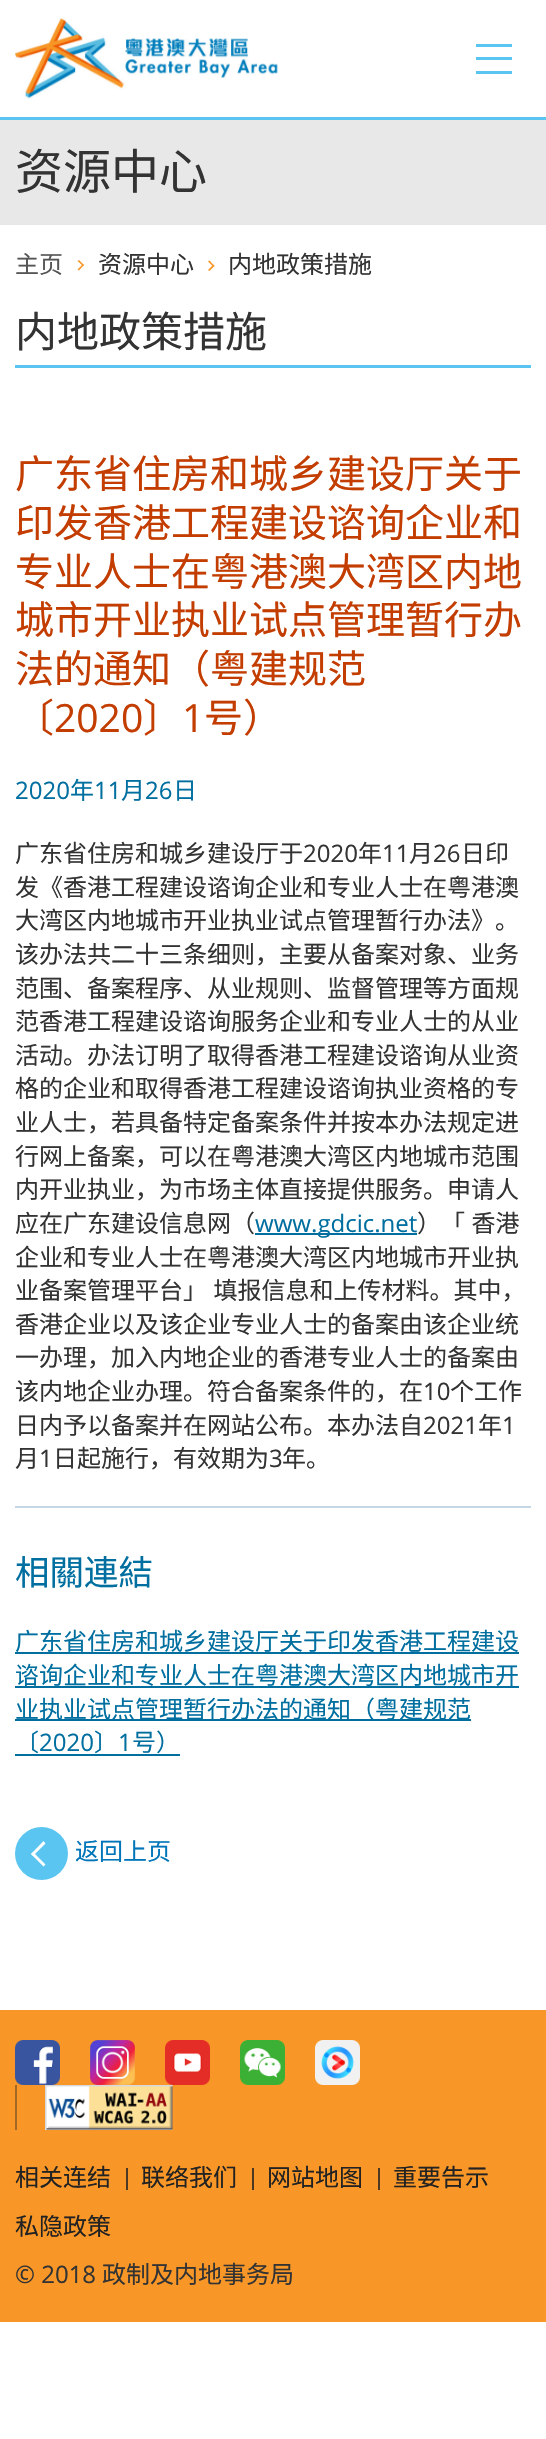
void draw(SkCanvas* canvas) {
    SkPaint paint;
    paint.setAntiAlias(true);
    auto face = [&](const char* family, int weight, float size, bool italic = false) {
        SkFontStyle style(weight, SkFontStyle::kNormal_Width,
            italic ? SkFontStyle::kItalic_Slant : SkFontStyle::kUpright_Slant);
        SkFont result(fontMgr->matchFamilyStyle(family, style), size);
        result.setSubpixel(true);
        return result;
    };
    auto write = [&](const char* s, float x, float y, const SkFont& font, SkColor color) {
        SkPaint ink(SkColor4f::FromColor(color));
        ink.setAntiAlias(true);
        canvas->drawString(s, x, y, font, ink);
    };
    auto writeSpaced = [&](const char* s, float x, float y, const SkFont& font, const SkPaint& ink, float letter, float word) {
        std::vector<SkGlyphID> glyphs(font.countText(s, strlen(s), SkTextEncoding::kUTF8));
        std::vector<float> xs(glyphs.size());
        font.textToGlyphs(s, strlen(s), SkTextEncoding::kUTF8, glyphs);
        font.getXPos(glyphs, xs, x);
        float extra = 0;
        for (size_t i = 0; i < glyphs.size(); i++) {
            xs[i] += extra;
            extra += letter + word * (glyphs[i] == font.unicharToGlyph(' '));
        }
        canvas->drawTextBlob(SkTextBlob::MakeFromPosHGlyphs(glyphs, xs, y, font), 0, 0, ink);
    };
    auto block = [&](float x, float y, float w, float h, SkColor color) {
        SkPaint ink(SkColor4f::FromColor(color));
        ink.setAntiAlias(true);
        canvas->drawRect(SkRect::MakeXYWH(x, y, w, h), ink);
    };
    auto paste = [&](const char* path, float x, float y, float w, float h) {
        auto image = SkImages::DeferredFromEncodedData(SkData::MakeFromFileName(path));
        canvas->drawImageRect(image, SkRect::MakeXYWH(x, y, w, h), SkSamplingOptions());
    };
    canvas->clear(SK_ColorWHITE);
    block(0, 117, 546, 3, SkColorSetRGB(90, 197, 241));
    paste("pic1.png", 15, 17, 263, 82);
    block(476, 44, 36, 3, SkColorSetRGB(90, 197, 241));
    block(476, 57, 36, 3, SkColorSetRGB(90, 197, 241));
    block(476, 71, 36, 3, SkColorSetRGB(90, 197, 241));
    block(0, 120, 546, 105, SkColorSetRGB(232, 232, 232));
    auto kFont1 = face("Noto Sans CJK SC", 400, 48);
    write("资源中心", 15, 189, kFont1, SkColorSetRGB(51, 51, 51));
    auto kFont2 = face("Noto Sans CJK SC", 400, 24);
    write("主页", 15, 273, kFont2, SkColorSetRGB(85, 85, 85));
    paint.setColor(SkColorSetRGB(248, 151, 39));
    canvas->drawPath(SkPathBuilder().moveTo(79, 260).lineTo(84, 265).lineTo(83, 266).lineTo(77.5f, 261).close().detach(), paint);
    canvas->drawPath(SkPathBuilder().moveTo(83, 264).lineTo(84, 265).lineTo(79, 270.5f).lineTo(77.5f, 269.5f).close().detach(), paint);
    write("资源中心", 98, 273, kFont2, SkColorSetRGB(51, 51, 51));
    canvas->drawPath(SkPathBuilder().moveTo(209.5f, 260.5f).lineTo(214.5f, 266).lineTo(213.5f, 267).lineTo(208, 261.5f).close().detach(), paint);
    canvas->drawPath(SkPathBuilder().moveTo(213.5f, 264.5f).lineTo(214.5f, 266).lineTo(209.5f, 271).lineTo(208, 270).close().detach(), paint);
    write("内地政策措施", 228, 273, kFont2, SkColorSetRGB(51, 51, 51));
    block(15, 365, 516, 3, SkColorSetRGB(90, 197, 241));
    auto kFont3 = face("Noto Sans CJK SC", 400, 42);
    write("内地政策措施", 15, 347, kFont3, SkColorSetRGB(51, 51, 51));
    auto kFont4 = face("Noto Sans CJK SC", 400, 39);
    write("广东省住房和城乡建设厅关于", 15, 488, kFont4, SkColorSetRGB(195, 61, 0));
    write("印发香港工程建设谘询企业和", 15, 537, kFont4, SkColorSetRGB(195, 61, 0));
    write("专业人士在粤港澳大湾区内地", 15, 586, kFont4, SkColorSetRGB(195, 61, 0));
    write("城市开业执业试点管理暂行办", 15, 634, kFont4, SkColorSetRGB(195, 61, 0));
    write("法的通知（粤建规范", 15, 683, kFont4, SkColorSetRGB(195, 61, 0));
    write("〔", 15, 732, kFont4, SkColorSetRGB(195, 61, 0));
    auto kFont5 = face("Open Sans", 400, 39);
    write("2020", 54, 732, kFont5, SkColorSetRGB(195, 61, 0));
    write("〕", 143, 732, kFont4, SkColorSetRGB(195, 61, 0));
    write("1", 182, 732, kFont5, SkColorSetRGB(195, 61, 0));
    write("号）", 204, 732, kFont4, SkColorSetRGB(195, 61, 0));
    auto kFont6 = face("Open Sans", 400, 24);
    write("2020", 15, 799, kFont6, SkColorSetRGB(0, 111, 160));
    write("年", 70, 799, kFont2, SkColorSetRGB(0, 111, 160));
    write("11", 94, 799, kFont6, SkColorSetRGB(0, 111, 160));
    write("月", 121, 799, kFont2, SkColorSetRGB(0, 111, 160));
    write("26", 145, 799, kFont6, SkColorSetRGB(0, 111, 160));
    write("日", 173, 799, kFont2, SkColorSetRGB(0, 111, 160));
    write("广东省住房和城乡建设厅于", 15, 862, kFont2, SkColorSetRGB(51, 51, 51));
    write("2020", 303, 862, kFont6, SkColorSetRGB(51, 51, 51));
    write("年", 358, 862, kFont2, SkColorSetRGB(51, 51, 51));
    write("11", 382, 862, kFont6, SkColorSetRGB(51, 51, 51));
    write("月", 409, 862, kFont2, SkColorSetRGB(51, 51, 51));
    write("26", 433, 862, kFont6, SkColorSetRGB(51, 51, 51));
    write("日印", 461, 862, kFont2, SkColorSetRGB(51, 51, 51));
    write("发《香港工程建设谘询企业和专业人士在粤港澳", 15, 896, kFont2, SkColorSetRGB(51, 51, 51));
    write("大湾区内地城市开业执业试点管理暂行办法》。", 15, 929, kFont2, SkColorSetRGB(51, 51, 51));
    write("该办法共二十三条细则，主要从备案对象、业务", 15, 963, kFont2, SkColorSetRGB(51, 51, 51));
    write("范围、备案程序、从业规则、监督管理等方面规", 15, 997, kFont2, SkColorSetRGB(51, 51, 51));
    write("范香港工程建设谘询服务企业和专业人士的从业", 15, 1030, kFont2, SkColorSetRGB(51, 51, 51));
    write("活动。办法订明了取得香港工程建设谘询从业资", 15, 1064, kFont2, SkColorSetRGB(51, 51, 51));
    write("格的企业和取得香港工程建设谘询执业资格的专", 15, 1097, kFont2, SkColorSetRGB(51, 51, 51));
    write("业人士，若具备特定备案条件并按本办法规定进", 15, 1131, kFont2, SkColorSetRGB(51, 51, 51));
    write("行网上备案，可以在粤港澳大湾区内地城市范围", 15, 1165, kFont2, SkColorSetRGB(51, 51, 51));
    write("内开业执业，为市场主体直接提供服务。申请人", 15, 1198, kFont2, SkColorSetRGB(51, 51, 51));
    write("应在广东建设信息网（", 15, 1232, kFont2, SkColorSetRGB(51, 51, 51));
    block(255, 1233, 162, 2, SkColorSetRGB(0, 111, 160));
    write("www.gdcic.net", 255, 1232, kFont6, SkColorSetRGB(0, 111, 160));
    paint.setColor(SkColorSetRGB(51, 51, 51));
    writeSpaced("）「 香港", 417, 1232, kFont2, paint, 0, 1);
    write("企业和专业人士在粤港澳大湾区内地城市开业执", 15, 1266, kFont2, SkColorSetRGB(51, 51, 51));
    writeSpaced("业备案管理平台」 填报信息和上传材料。其中，", 15, 1299, kFont2, paint, 0, 1);
    write("香港企业以及该企业专业人士的备案由该企业统", 15, 1333, kFont2, SkColorSetRGB(51, 51, 51));
    write("一办理，加入内地企业的香港专业人士的备案由", 15, 1366, kFont2, SkColorSetRGB(51, 51, 51));
    write("该内地企业办理。符合备案条件的，在", 15, 1400, kFont2, SkColorSetRGB(51, 51, 51));
    write("10", 423, 1400, kFont6, SkColorSetRGB(51, 51, 51));
    write("个工作", 450, 1400, kFont2, SkColorSetRGB(51, 51, 51));
    write("日内予以备案并在网站公布。本办法自", 15, 1434, kFont2, SkColorSetRGB(51, 51, 51));
    write("2021", 423, 1434, kFont6, SkColorSetRGB(51, 51, 51));
    write("年", 478, 1434, kFont2, SkColorSetRGB(51, 51, 51));
    write("1", 502, 1434, kFont6, SkColorSetRGB(51, 51, 51));
    write("月", 15, 1467, kFont2, SkColorSetRGB(51, 51, 51));
    write("1", 39, 1467, kFont6, SkColorSetRGB(51, 51, 51));
    write("日起施行，有效期为", 53, 1467, kFont2, SkColorSetRGB(51, 51, 51));
    write("3", 269, 1467, kFont6, SkColorSetRGB(51, 51, 51));
    write("年。", 282, 1467, kFont2, SkColorSetRGB(51, 51, 51));
    block(15, 1506, 516, 2, SkColorSetRGB(198, 214, 227));
    auto kFont7 = face("Noto Sans CJK SC", 400, 34.5f);
    write("相關連結", 15, 1585, kFont7, SkColorSetRGB(0, 111, 160));
    block(15, 1652, 504, 2, SkColorSetRGB(0, 111, 160));
    write("广东省住房和城乡建设厅关于印发香港工程建设", 15, 1650, kFont2, SkColorSetRGB(0, 111, 160));
    write("谘询企业和专业人士在粤港澳大湾区内地城市开", 15, 1684, kFont2, SkColorSetRGB(0, 111, 160));
    block(15, 1686, 504, 2, SkColorSetRGB(0, 111, 160));
    block(15, 1719, 456, 2, SkColorSetRGB(0, 111, 160));
    write("业执业试点管理暂行办法的通知（粤建规范", 15, 1718, kFont2, SkColorSetRGB(0, 111, 160));
    write("〔", 15, 1751, kFont2, SkColorSetRGB(0, 111, 160));
    write("2020", 39, 1751, kFont6, SkColorSetRGB(0, 111, 160));
    block(15, 1754, 165, 2, SkColorSetRGB(0, 111, 160));
    write("〕", 94, 1751, kFont2, SkColorSetRGB(0, 111, 160));
    write("1", 118, 1751, kFont6, SkColorSetRGB(0, 111, 160));
    write("号）", 132, 1751, kFont2, SkColorSetRGB(0, 111, 160));
    paint.setColor(SkColorSetRGB(90, 197, 241));
    canvas->drawCircle(41.5f, 1853.5f, 26.5f, paint);
    write("返回上页", 75, 1860, kFont2, SkColorSetRGB(0, 117, 185));
    paint.setColor(SK_ColorWHITE);
    canvas->drawPath(SkPathBuilder().moveTo(31, 1854).lineTo(43.5f, 1841).lineTo(45.5f, 1843.5f).lineTo(33, 1856).close().detach(), paint);
    canvas->drawPath(SkPathBuilder().moveTo(31, 1854).lineTo(33, 1852).lineTo(45.5f, 1864.5f).lineTo(43.5f, 1866.5f).close().detach(), paint);
    block(0, 2010, 546, 312, SkColorSetRGB(248, 151, 39));
    paste("pic2.png", 15, 2040, 45, 45);
    paste("pic3.png", 90, 2040, 45, 45);
    paste("pic4.png", 165, 2040, 45, 45);
    paste("pic5.png", 240, 2040, 45, 45);
    paste("pic6.png", 315, 2040, 45, 45);
    paste("pic7.png", 45, 2085, 128, 45);
    block(15, 2085, 2, 45, SkColorSetRGB(162, 104, 37));
    write("相关连结", 15, 2186, kFont2, SkColorSetRGB(34, 34, 34));
    block(126, 2168, 2, 22, SkColorSetRGB(77, 57, 35));
    write("联络我们", 141, 2186, kFont2, SkColorSetRGB(34, 34, 34));
    block(252, 2168, 2, 22, SkColorSetRGB(77, 57, 35));
    write("网站地图", 267, 2186, kFont2, SkColorSetRGB(34, 34, 34));
    block(378, 2168, 2, 22, SkColorSetRGB(77, 57, 35));
    write("重要告示", 393, 2186, kFont2, SkColorSetRGB(34, 34, 34));
    write("私隐政策", 15, 2235, kFont2, SkColorSetRGB(34, 34, 34));
    write("© 2018", 15, 2283, kFont6, SkColorSetRGB(51, 51, 51));
    write("政制及内地事务局", 102, 2283, kFont2, SkColorSetRGB(51, 51, 51));
}
